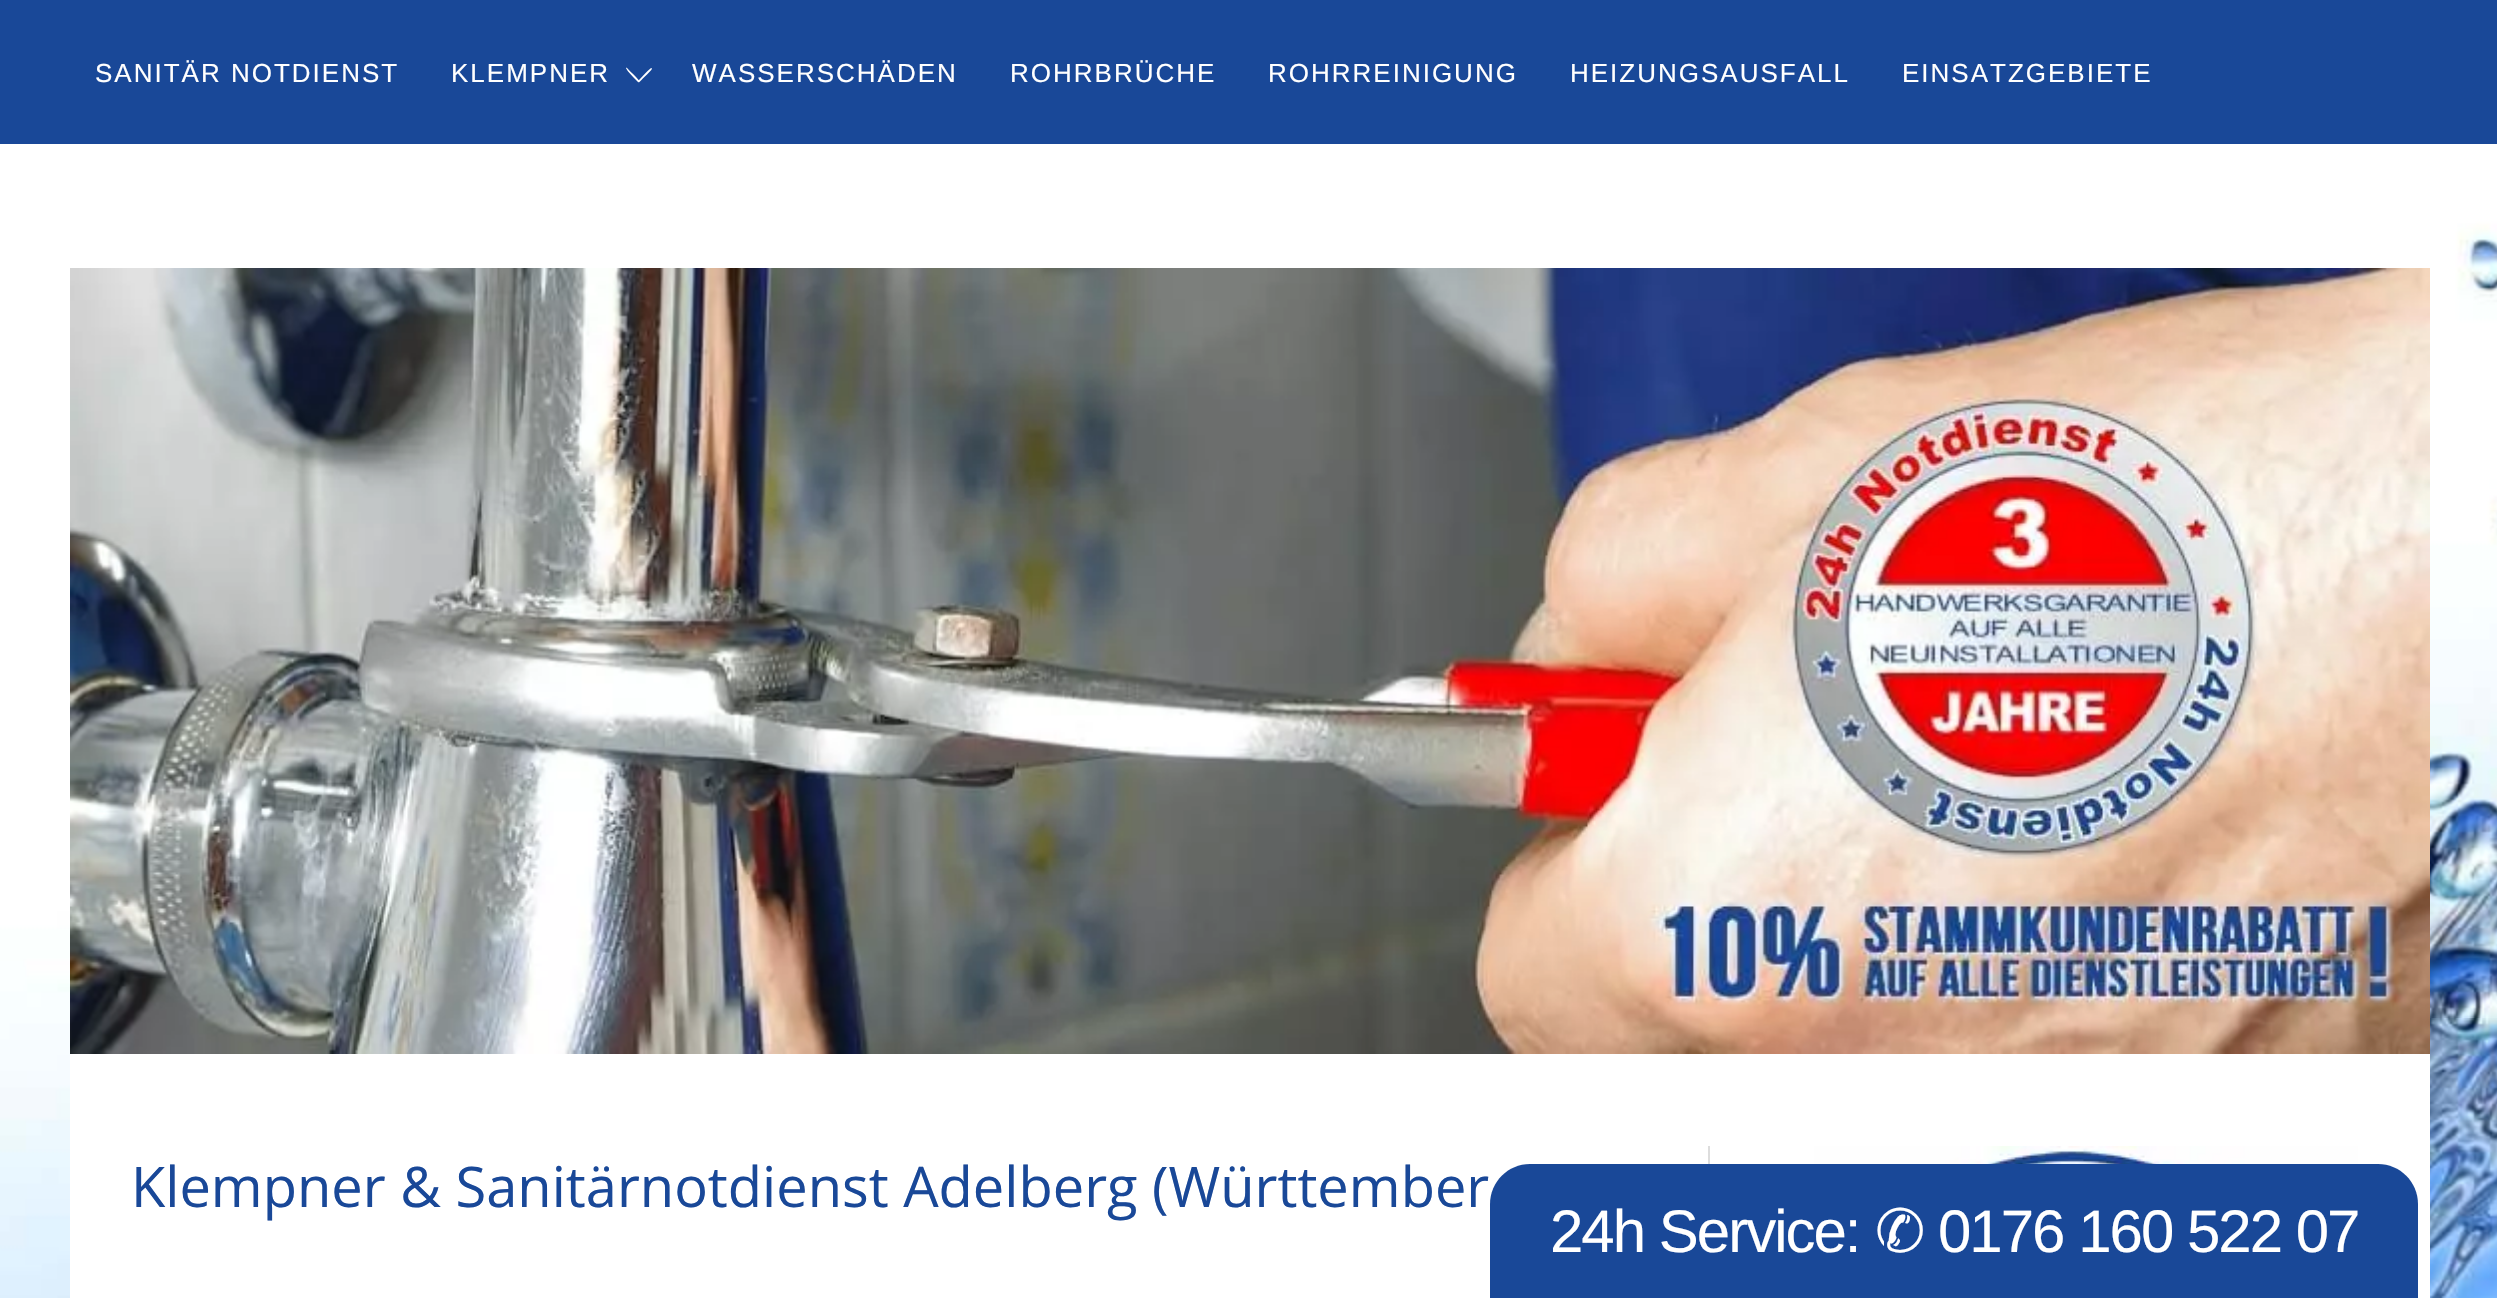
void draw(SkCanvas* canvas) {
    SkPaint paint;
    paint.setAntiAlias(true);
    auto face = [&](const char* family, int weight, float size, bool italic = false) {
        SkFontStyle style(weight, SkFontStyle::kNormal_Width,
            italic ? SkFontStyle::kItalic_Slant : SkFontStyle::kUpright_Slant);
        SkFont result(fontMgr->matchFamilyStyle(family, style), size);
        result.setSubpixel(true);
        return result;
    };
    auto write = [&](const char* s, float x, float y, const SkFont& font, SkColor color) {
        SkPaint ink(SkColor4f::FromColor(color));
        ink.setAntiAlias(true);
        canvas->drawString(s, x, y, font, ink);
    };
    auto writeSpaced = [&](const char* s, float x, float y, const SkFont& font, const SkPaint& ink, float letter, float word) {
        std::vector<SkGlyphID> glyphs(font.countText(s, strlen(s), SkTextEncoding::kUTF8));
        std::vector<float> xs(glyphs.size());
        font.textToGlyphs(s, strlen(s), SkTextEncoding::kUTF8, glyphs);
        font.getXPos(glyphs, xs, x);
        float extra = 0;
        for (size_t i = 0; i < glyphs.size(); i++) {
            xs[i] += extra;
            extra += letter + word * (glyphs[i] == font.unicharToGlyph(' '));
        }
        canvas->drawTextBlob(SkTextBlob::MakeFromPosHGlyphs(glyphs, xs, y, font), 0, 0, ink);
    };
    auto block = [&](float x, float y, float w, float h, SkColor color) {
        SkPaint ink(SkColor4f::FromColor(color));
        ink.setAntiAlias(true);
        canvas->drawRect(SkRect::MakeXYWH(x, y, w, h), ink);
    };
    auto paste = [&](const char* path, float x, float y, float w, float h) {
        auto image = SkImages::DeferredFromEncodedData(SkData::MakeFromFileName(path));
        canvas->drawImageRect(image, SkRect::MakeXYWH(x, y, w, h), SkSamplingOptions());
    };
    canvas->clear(SK_ColorWHITE);
    paste("pic1.png", 0, 144, 2497, 1154);
    block(0, 0, 2497, 144, SkColorSetRGB(25, 72, 152));
    auto kFont1 = face("Liberation Sans", 400, 26);
    paint.setColor(SK_ColorWHITE);
    writeSpaced("SANITÄR NOTDIENST", 95, 82, kFont1, paint, 2, 0);
    writeSpaced("KLEMPNER", 451, 82, kFont1, paint, 2, 0);
    paste("pic2.png", 626, 67, 26, 16);
    writeSpaced("WASSERSCHÄDEN", 692, 82, kFont1, paint, 2, 0);
    writeSpaced("ROHRBRÜCHE", 1010, 82, kFont1, paint, 2, 0);
    writeSpaced("ROHRREINIGUNG", 1268, 82, kFont1, paint, 2, 0);
    writeSpaced("HEIZUNGSAUSFALL", 1570, 82, kFont1, paint, 2, 0);
    writeSpaced("EINSATZGEBIETE", 1902, 82, kFont1, paint, 2, 0);
    block(70, 447, 2360, 851, SK_ColorWHITE);
    paste("pic3.png", 70, 268, 2360, 786);
    paste("pic4.png", 1814, 1146, 544, 18);
    block(1708, 1146, 2, 18, SkColorSetRGB(221, 221, 221));
    auto kFont2 = face("Open Sans", 400, 56);
    write("Klempner & Sanitärnotdienst Adelberg (Württember", 131, 1207, kFont2, SkColorSetRGB(25, 72, 152));
    paint.setColor(SkColorSetRGB(25, 72, 152));
    canvas->drawPath(SkPathBuilder().moveTo(1530, 1164).lineTo(2378, 1164).cubicTo(2400, 1164, 2418, 1182, 2418, 1204).lineTo(2418, 1298).lineTo(1490, 1298).lineTo(1490, 1204).cubicTo(1490, 1182, 1508, 1164, 1530, 1164).close().detach(), paint);
    auto kFont3 = face("Liberation Sans", 400, 60);
    paint.setColor(SK_ColorWHITE);
    writeSpaced("24h Service:", 1550, 1252, kFont3, paint, -2, 0);
    auto kFont4 = face("DejaVu Sans", 400, 60);
    writeSpaced("✆", 1875, 1252, kFont4, paint, -2, 0);
    writeSpaced("0176 160 522 07", 1938, 1252, kFont3, paint, -2, 0);
}
